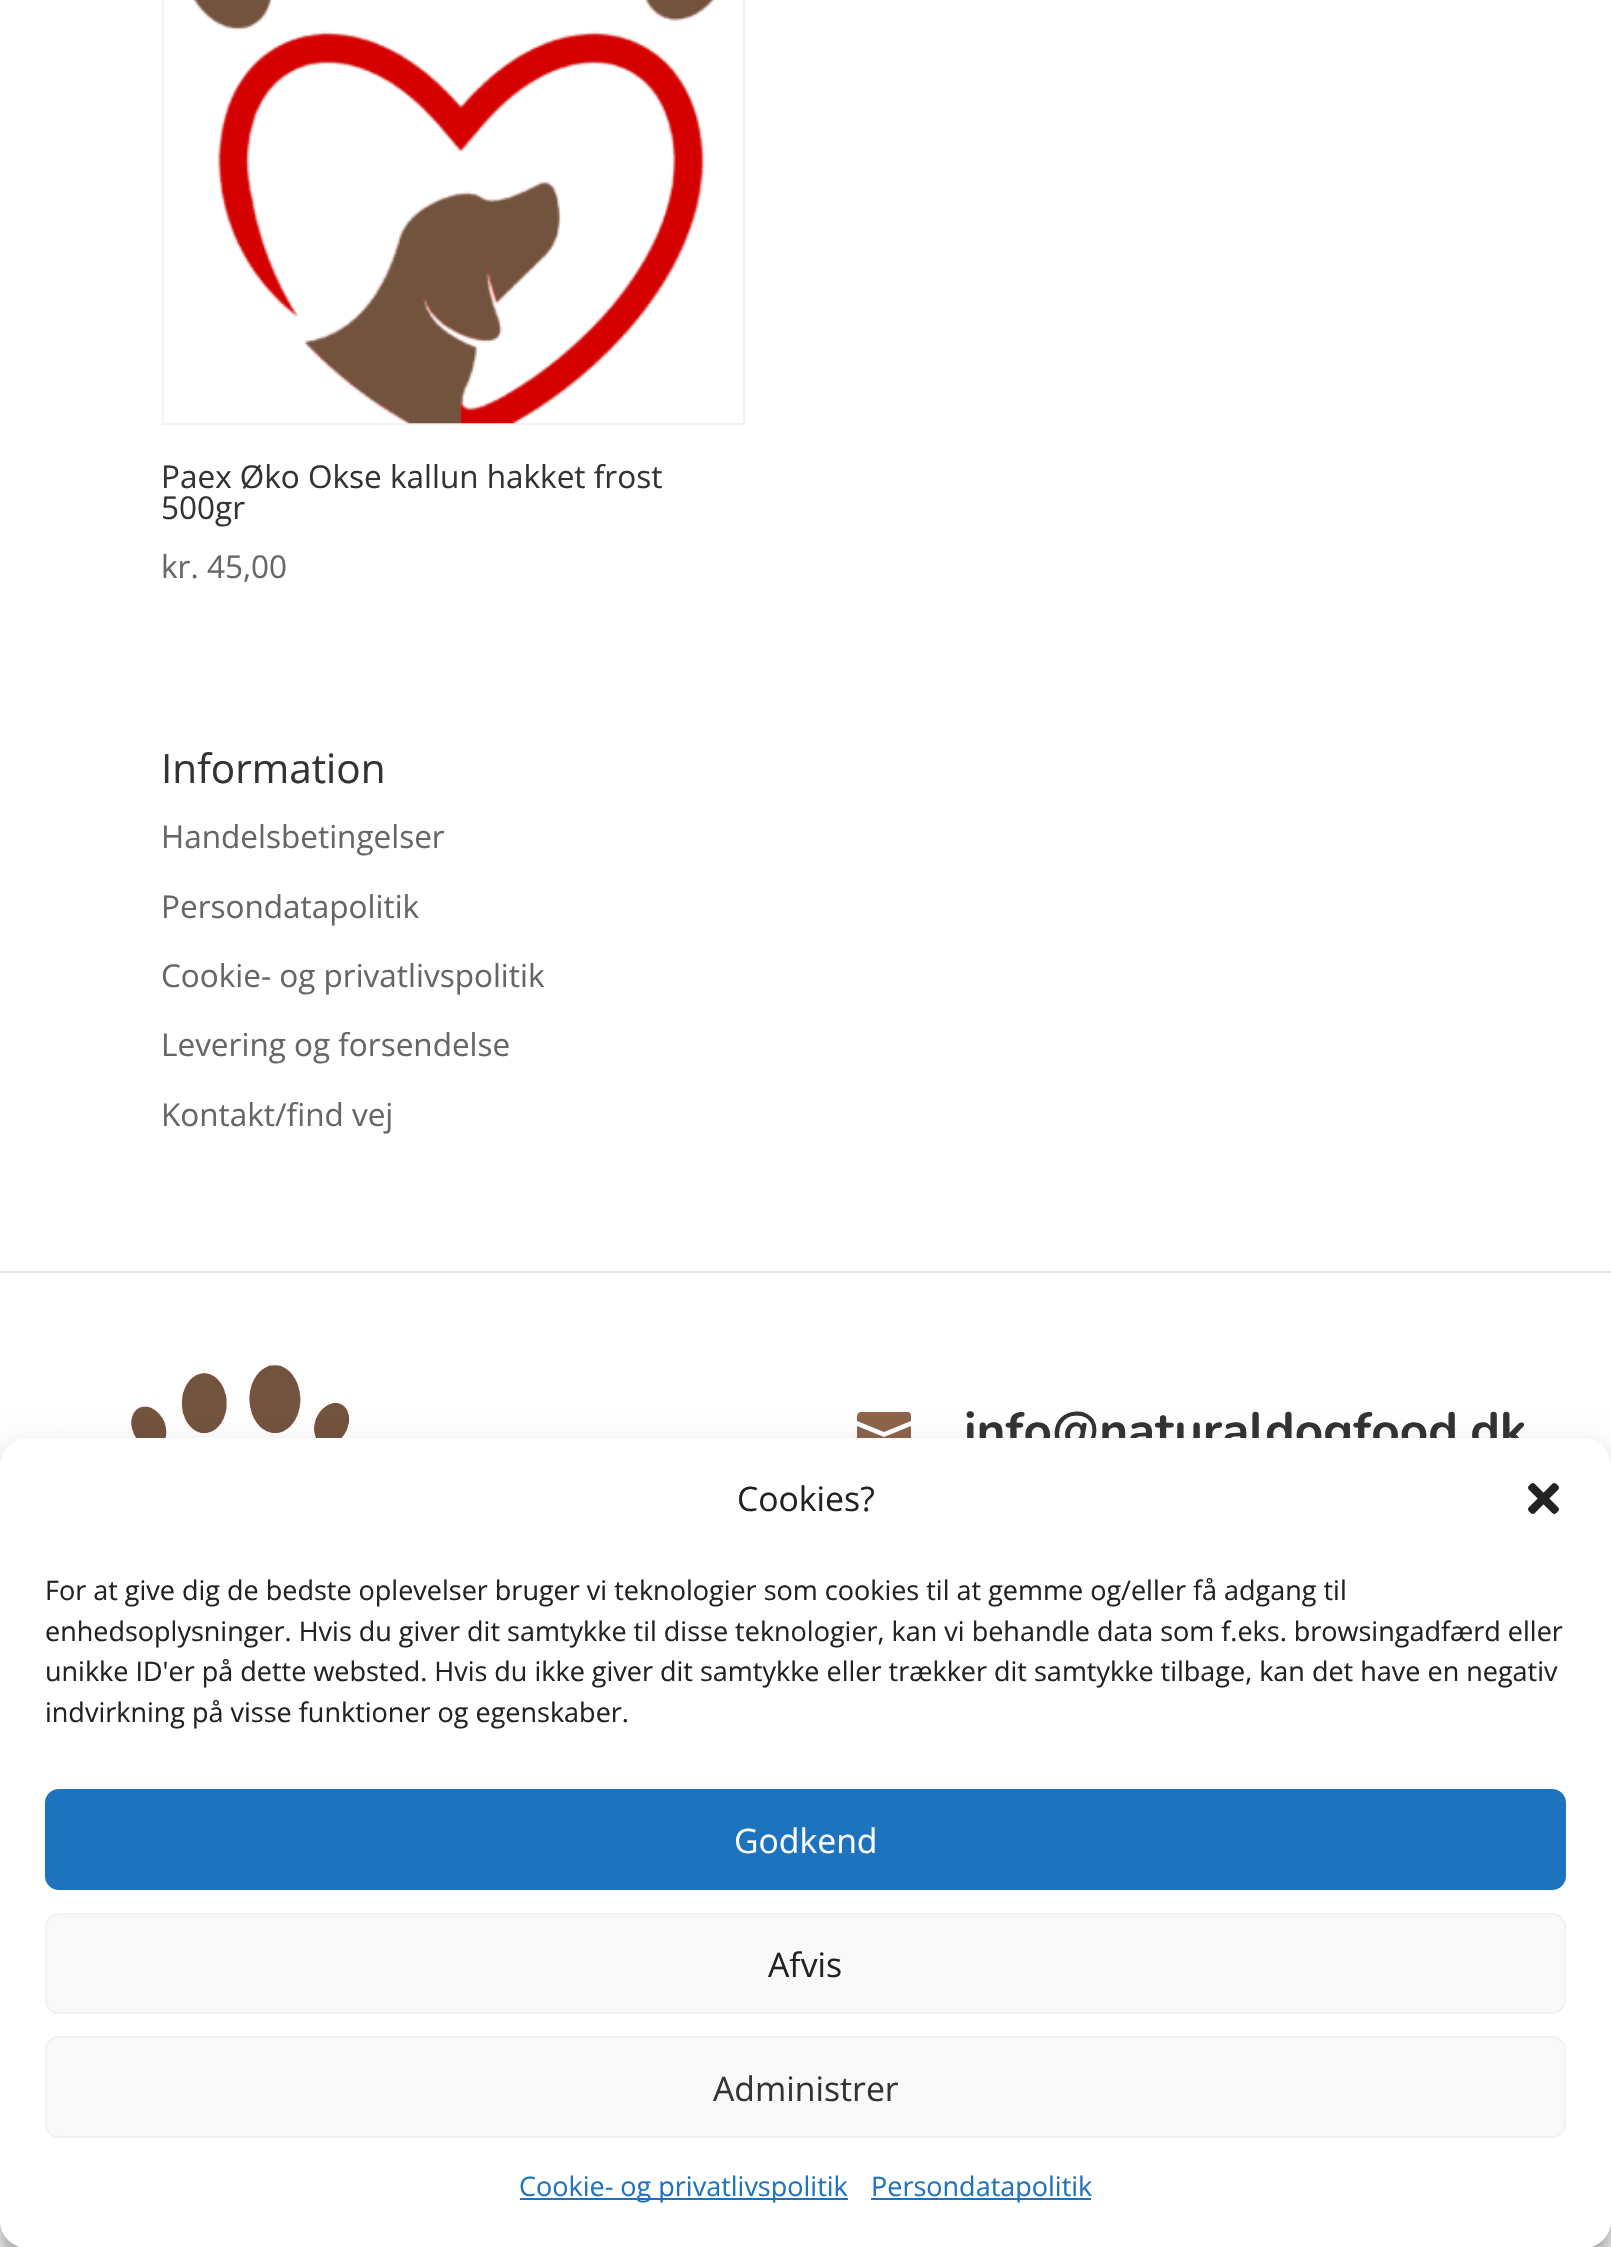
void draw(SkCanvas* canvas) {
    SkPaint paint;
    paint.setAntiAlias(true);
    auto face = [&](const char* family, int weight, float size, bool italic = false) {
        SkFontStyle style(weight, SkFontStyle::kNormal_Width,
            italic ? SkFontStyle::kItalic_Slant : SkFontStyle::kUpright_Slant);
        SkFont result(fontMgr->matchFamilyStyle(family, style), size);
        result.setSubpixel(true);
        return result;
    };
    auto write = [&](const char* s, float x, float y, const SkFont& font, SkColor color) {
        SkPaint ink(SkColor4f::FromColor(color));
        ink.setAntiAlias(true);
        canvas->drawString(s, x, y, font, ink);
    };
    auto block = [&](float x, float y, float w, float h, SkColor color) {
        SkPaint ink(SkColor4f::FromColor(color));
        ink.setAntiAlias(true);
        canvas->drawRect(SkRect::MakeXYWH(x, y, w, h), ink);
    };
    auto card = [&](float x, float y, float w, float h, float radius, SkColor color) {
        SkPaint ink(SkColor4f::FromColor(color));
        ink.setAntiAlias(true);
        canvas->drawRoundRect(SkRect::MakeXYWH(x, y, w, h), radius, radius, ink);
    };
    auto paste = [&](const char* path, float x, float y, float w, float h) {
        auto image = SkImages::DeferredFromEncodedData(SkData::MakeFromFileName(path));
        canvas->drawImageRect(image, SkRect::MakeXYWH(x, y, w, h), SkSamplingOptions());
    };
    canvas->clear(SK_ColorWHITE);
    paint.setStyle(SkPaint::kStroke_Style);
    paint.setStrokeWidth(2);
    paint.setColor(SkColorSetRGB(242, 242, 242));
    canvas->drawRect(SkRect::MakeXYWH(163, -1, 581, 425), paint);
    paste("pic1.png", 193, 0, 522, 424);
    auto kFont1 = face("Open Sans", 400, 31.5f);
    write("Paex Øko Okse kallun hakket frost", 161, 488, kFont1, SkColorSetRGB(51, 51, 51));
    write("500gr", 161, 519, kFont1, SkColorSetRGB(51, 51, 51));
    write("kr. 45,00", 161, 578, kFont1, SkColorSetRGB(102, 102, 102));
    auto kFont2 = face("Open Sans", 400, 40.5f);
    write("Information", 161, 783, kFont2, SkColorSetRGB(51, 51, 51));
    write("Handelsbetingelser", 161, 848, kFont1, SkColorSetRGB(102, 102, 102));
    write("Persondatapolitik", 161, 918, kFont1, SkColorSetRGB(102, 102, 102));
    write("Cookie- og privatlivspolitik", 161, 987, kFont1, SkColorSetRGB(102, 102, 102));
    write("Levering og forsendelse", 161, 1056, kFont1, SkColorSetRGB(102, 102, 102));
    write("Kontakt/find vej", 161, 1126, kFont1, SkColorSetRGB(102, 102, 102));
    block(0, 1271, 1611, 2, SkColorSetRGB(230, 230, 230));
    paste("pic2.png", 131, 1364, 219, 74);
    paint.setStyle(SkPaint::kFill_Style);
    paint.setColor(SkColorSetRGB(141, 100, 73));
    canvas->drawPath(SkPathBuilder().moveTo(908, 1412).lineTo(861, 1412).cubicTo(856, 1412, 857, 1418, 857, 1421).lineTo(884, 1432).lineTo(911, 1421).cubicTo(911, 1418, 912, 1412, 908, 1412).close().moveTo(857, 1426).lineTo(857, 1445).cubicTo(857, 1454, 859, 1452, 868, 1452).lineTo(900, 1452).cubicTo(909, 1452, 911, 1454, 911, 1445).lineTo(911, 1426).lineTo(884, 1437).close().detach(), paint);
    auto kFont3 = face("Nunito", 700, 49.5f);
    write("info@naturaldogfood.dk", 964, 1447, kFont3, SkColorSetRGB(51, 51, 51));
    paint.setColor(SkColorSetARGB(59, 0, 0, 0));
    paint.setMaskFilter(SkMaskFilter::MakeBlur(kNormal_SkBlurStyle, 7));
    canvas->drawRoundRect(SkRect::MakeXYWH(0, 1451, 1611, 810), 27, 27, paint);
    paint.setMaskFilter(nullptr);
    paint.setColor(SkColorSetARGB(48, 0, 0, 0));
    paint.setMaskFilter(SkMaskFilter::MakeBlur(kNormal_SkBlurStyle, 22.5f));
    canvas->drawRoundRect(SkRect::MakeXYWH(0, 1460, 1611, 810), 27, 27, paint);
    paint.setMaskFilter(nullptr);
    card(0, 1438, 1611, 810, 27, SK_ColorWHITE);
    auto kFont4 = face("Open Sans", 400, 33.75f);
    write("Cookies?", 737, 1511, kFont4, SkColorSetRGB(34, 34, 34));
    paste("pic3.png", 1528, 1483, 31, 31);
    auto kFont5 = face("Open Sans", 400, 27);
    write("For at give dig de bedste oplevelser bruger vi teknologier som cookies til at gemme og/eller få adgang til", 45, 1600, kFont5, SkColorSetRGB(34, 34, 34));
    write("enhedsoplysninger. Hvis du giver dit samtykke til disse teknologier, kan vi behandle data som f.eks. browsingadfærd eller", 45, 1641, kFont5, SkColorSetRGB(34, 34, 34));
    write("unikke ID'er på dette websted. Hvis du ikke giver dit samtykke eller trækker dit samtykke tilbage, kan det have en negativ", 45, 1681, kFont5, SkColorSetRGB(34, 34, 34));
    write("indvirkning på visse funktioner og egenskaber.", 45, 1722, kFont5, SkColorSetRGB(34, 34, 34));
    paint.setColor(SkColorSetRGB(30, 115, 190));
    canvas->drawRoundRect(SkRect::MakeXYWH(46, 1790, 1519, 99), 13, 13, paint);
    paint.setStyle(SkPaint::kStroke_Style);
    canvas->drawRoundRect(SkRect::MakeXYWH(46, 1790, 1519, 99), 13, 13, paint);
    write("Godkend", 734, 1853, kFont4, SK_ColorWHITE);
    paint.setStyle(SkPaint::kFill_Style);
    paint.setColor(SkColorSetRGB(249, 249, 249));
    canvas->drawRoundRect(SkRect::MakeXYWH(46, 1914, 1519, 99), 13, 13, paint);
    paint.setStyle(SkPaint::kStroke_Style);
    paint.setColor(SkColorSetRGB(242, 242, 242));
    canvas->drawRoundRect(SkRect::MakeXYWH(46, 1914, 1519, 99), 13, 13, paint);
    write("Afvis", 768, 1977, kFont4, SkColorSetRGB(34, 34, 34));
    paint.setStyle(SkPaint::kFill_Style);
    paint.setColor(SkColorSetRGB(249, 249, 249));
    canvas->drawRoundRect(SkRect::MakeXYWH(46, 2037, 1519, 100), 13, 13, paint);
    paint.setStyle(SkPaint::kStroke_Style);
    paint.setColor(SkColorSetRGB(242, 242, 242));
    canvas->drawRoundRect(SkRect::MakeXYWH(46, 2037, 1519, 100), 13, 13, paint);
    write("Administrer", 713, 2101, kFont4, SkColorSetRGB(51, 51, 51));
    block(520, 2198, 328, 2, SkColorSetRGB(30, 115, 190));
    write("Cookie- og privatlivspolitik", 519, 2196, kFont5, SkColorSetRGB(30, 115, 190));
    block(871, 2198, 220, 2, SkColorSetRGB(30, 115, 190));
    write("Persondatapolitik", 871, 2196, kFont5, SkColorSetRGB(30, 115, 190));
}
